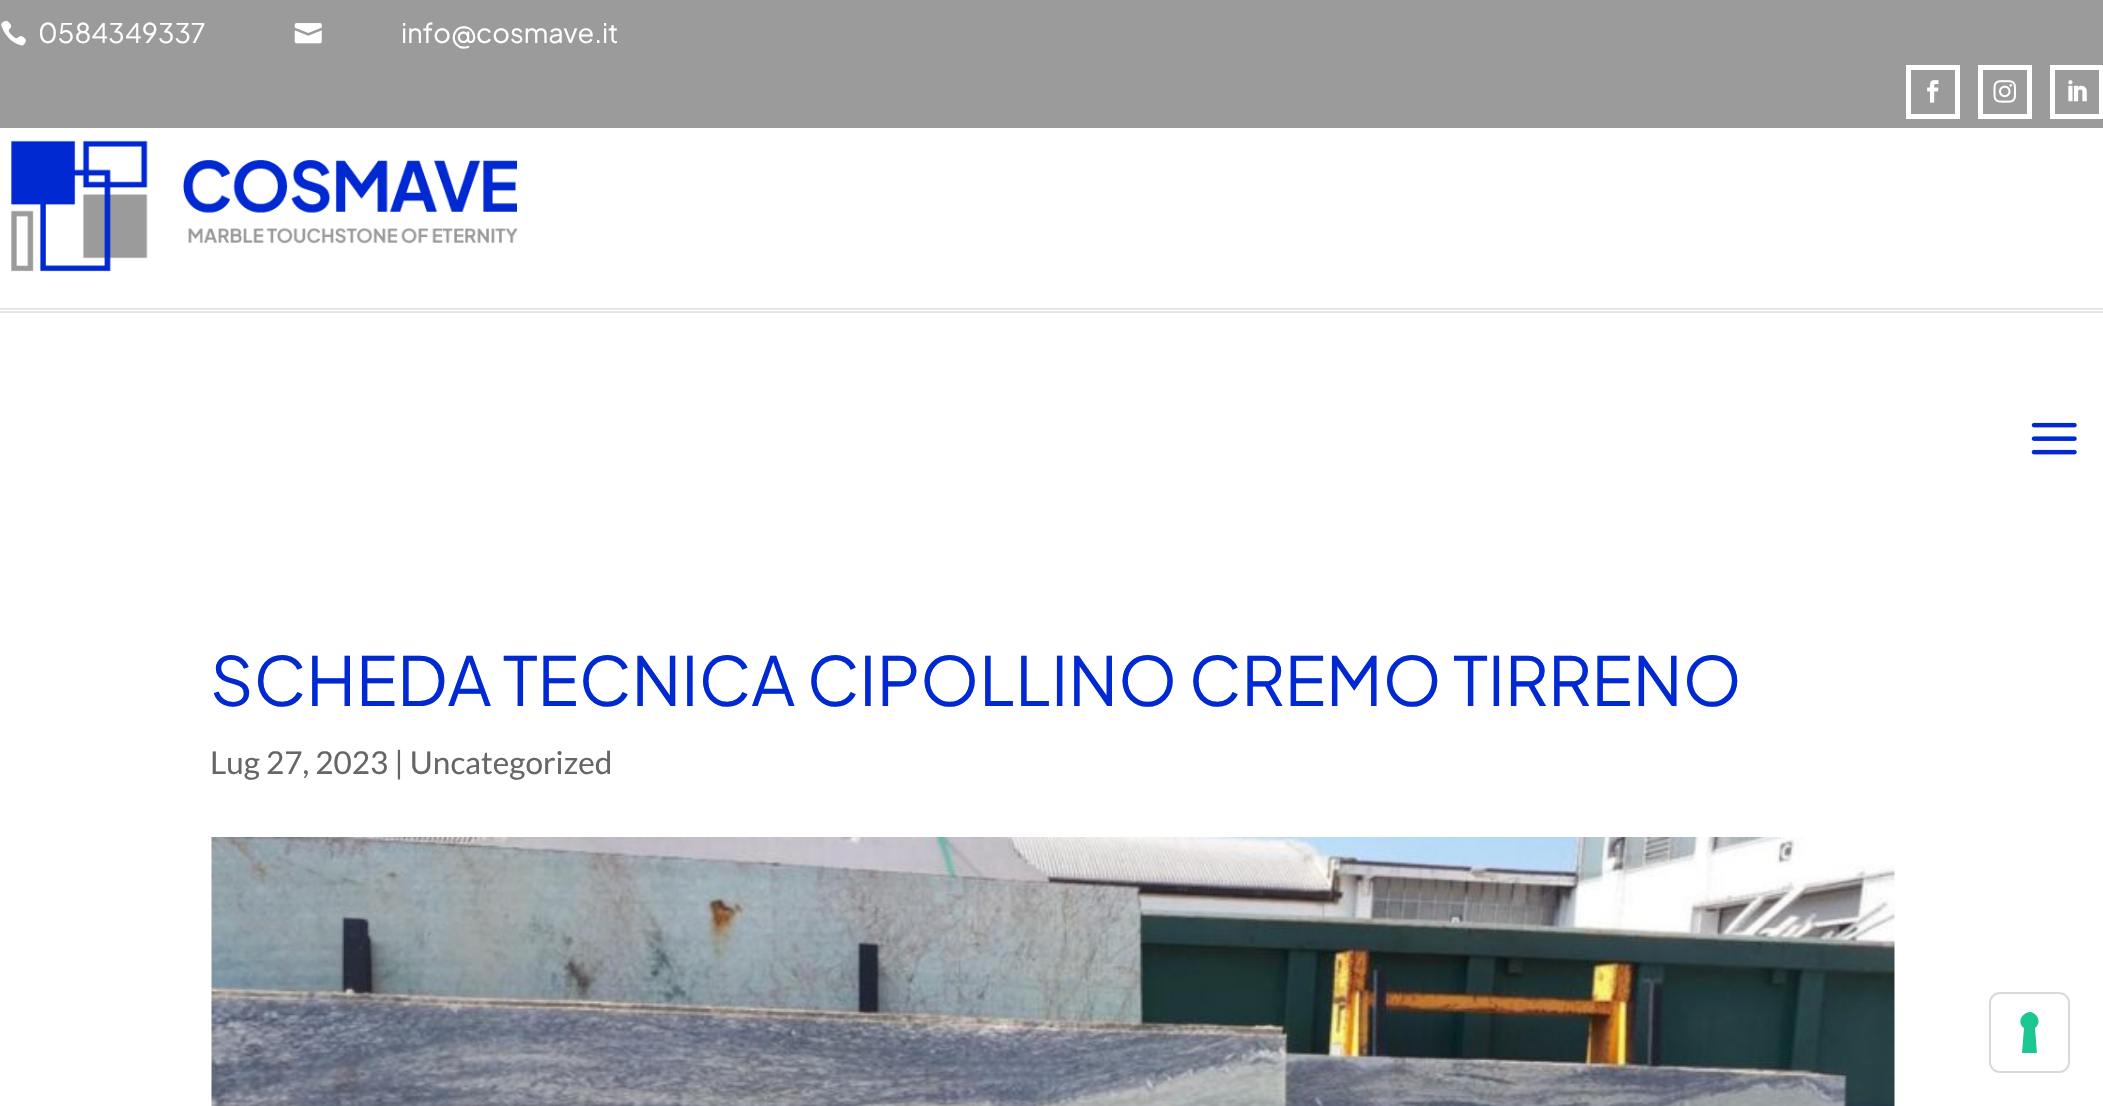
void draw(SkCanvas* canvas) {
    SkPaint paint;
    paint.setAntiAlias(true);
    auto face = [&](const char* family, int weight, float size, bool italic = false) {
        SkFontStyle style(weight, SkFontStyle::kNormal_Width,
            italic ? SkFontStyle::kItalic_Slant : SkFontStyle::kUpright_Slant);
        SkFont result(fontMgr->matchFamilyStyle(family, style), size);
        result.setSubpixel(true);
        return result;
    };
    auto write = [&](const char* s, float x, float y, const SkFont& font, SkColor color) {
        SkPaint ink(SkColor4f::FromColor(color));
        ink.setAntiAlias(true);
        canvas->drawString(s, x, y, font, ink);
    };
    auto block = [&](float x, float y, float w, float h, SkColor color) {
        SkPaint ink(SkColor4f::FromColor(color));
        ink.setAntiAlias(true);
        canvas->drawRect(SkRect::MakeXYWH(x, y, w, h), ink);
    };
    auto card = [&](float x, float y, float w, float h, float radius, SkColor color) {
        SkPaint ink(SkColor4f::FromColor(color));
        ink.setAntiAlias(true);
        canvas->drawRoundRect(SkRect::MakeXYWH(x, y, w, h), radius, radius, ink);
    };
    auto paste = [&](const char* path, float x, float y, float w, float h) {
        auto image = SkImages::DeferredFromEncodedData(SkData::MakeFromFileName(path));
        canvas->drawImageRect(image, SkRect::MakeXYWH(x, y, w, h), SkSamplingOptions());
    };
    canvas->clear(SK_ColorWHITE);
    block(0, 0, 2103, 128, SkColorSetRGB(156, 155, 155));
    paste("pic1.png", 1, 20, 25, 26);
    auto kFont1 = face("Plus Jakarta Sans", 400, 27);
    write("0584349337", 38, 43, kFont1, SK_ColorWHITE);
    paste("pic2.png", 294, 23, 28, 21);
    write("info@cosmave.it", 401, 43, kFont1, SK_ColorWHITE);
    paint.setStyle(SkPaint::kStroke_Style);
    paint.setStrokeWidth(5);
    paint.setColor(SK_ColorWHITE);
    canvas->drawRect(SkRect::MakeXYWH(1908.5f, 67.5f, 49, 49), paint);
    paste("pic3.png", 1927, 80, 12, 23);
    canvas->drawRect(SkRect::MakeXYWH(1980.5f, 67.5f, 49, 49), paint);
    paste("pic4.png", 1993, 80, 23, 23);
    canvas->drawRect(SkRect::MakeXYWH(2052.5f, 67.5f, 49, 49), paint);
    paste("pic5.png", 2068, 80, 19, 22);
    paint.setStyle(SkPaint::kFill_Style);
    paint.setColor(SkColorSetRGB(230, 230, 230));
    canvas->drawPath(SkPathBuilder().moveTo(0, 310).lineTo(0, 313).lineTo(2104, 313).lineTo(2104, 131).lineTo(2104, 310).close().detach(), paint);
    block(0, 310, 2103, 1, SK_ColorWHITE);
    block(0, 308, 2103, 2, SkColorSetRGB(230, 230, 230));
    paste("pic6.png", 11, 140, 507, 132);
    paste("pic7.png", 2031, 422, 46, 33);
    auto kFont2 = face("Plus Jakarta Sans", 400, 67.5f);
    write("SCHEDA TECNICA CIPOLLINO CREMO TIRRENO", 210, 706, kFont2, SkColorSetRGB(0, 41, 210));
    auto kFont3 = face("Lato", 400, 31.5f);
    write("Lug 27, 2023 | Uncategorized", 210, 774, kFont3, SkColorSetRGB(102, 102, 102));
    paste("pic8.png", 211, 837, 1684, 269);
    paint.setStyle(SkPaint::kStroke_Style);
    paint.setStrokeWidth(2);
    paint.setColor(SkColorSetRGB(217, 217, 217));
    canvas->drawRoundRect(SkRect::MakeXYWH(1990, 993, 79, 79), 10, 10, paint);
    card(1991, 995, 77, 76, 9, SK_ColorWHITE);
    paint.setStyle(SkPaint::kFill_Style);
    paint.setColor(SkColorSetRGB(28, 198, 145));
    canvas->drawPath(SkPathBuilder(SkPathFillType::kEvenOdd).moveTo(2030, 1012).cubicTo(2038, 1013, 2042, 1023, 2035, 1028).lineTo(2037, 1053).lineTo(2022, 1053).lineTo(2024, 1028).cubicTo(2017, 1023, 2021, 1013, 2030, 1012).close().detach(), paint);
}
